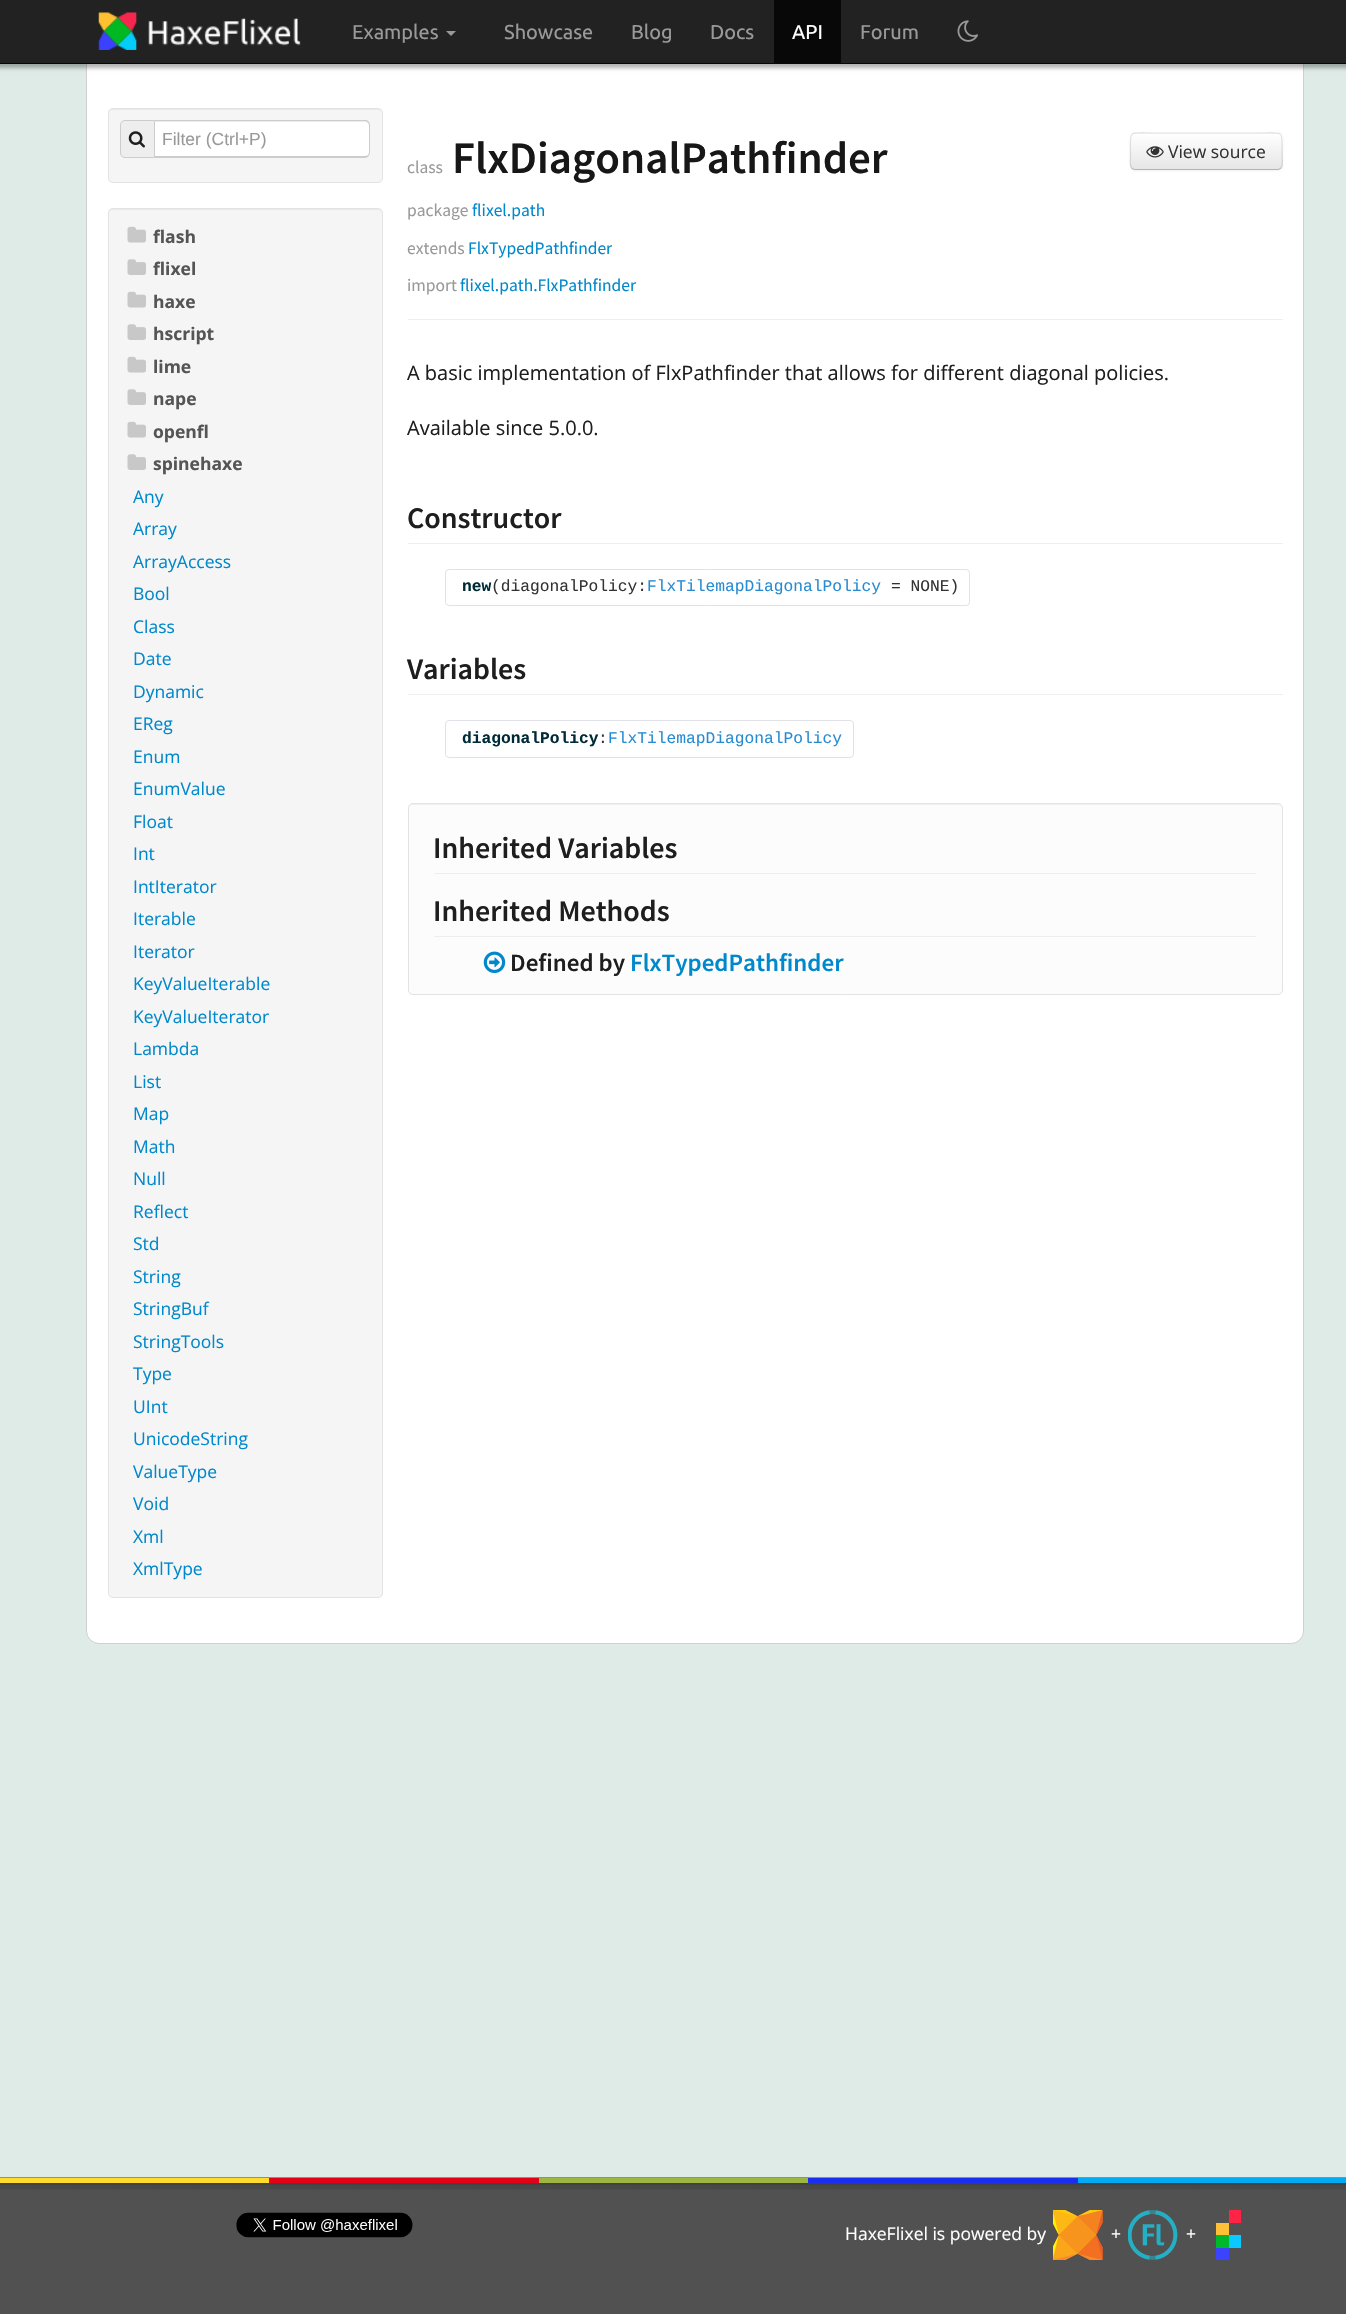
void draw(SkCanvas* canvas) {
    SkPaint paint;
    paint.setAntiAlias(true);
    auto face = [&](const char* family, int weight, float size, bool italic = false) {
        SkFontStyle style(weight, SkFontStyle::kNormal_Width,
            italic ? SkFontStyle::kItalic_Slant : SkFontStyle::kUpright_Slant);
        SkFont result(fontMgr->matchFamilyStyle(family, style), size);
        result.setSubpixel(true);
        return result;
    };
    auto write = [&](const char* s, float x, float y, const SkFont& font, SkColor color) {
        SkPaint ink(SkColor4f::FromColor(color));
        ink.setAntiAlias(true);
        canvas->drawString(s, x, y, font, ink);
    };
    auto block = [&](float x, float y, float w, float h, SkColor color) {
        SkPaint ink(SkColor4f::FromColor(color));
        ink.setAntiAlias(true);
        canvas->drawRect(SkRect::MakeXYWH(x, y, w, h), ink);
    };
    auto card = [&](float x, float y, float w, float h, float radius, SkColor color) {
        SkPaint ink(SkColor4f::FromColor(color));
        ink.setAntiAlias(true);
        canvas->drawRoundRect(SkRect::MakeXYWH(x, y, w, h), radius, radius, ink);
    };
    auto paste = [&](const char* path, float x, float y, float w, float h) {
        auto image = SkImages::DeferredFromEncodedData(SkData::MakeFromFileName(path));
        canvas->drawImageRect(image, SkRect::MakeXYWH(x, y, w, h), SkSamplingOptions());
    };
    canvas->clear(SkColorSetRGB(223, 235, 231));
    paint.setColor(SK_ColorWHITE);
    canvas->drawRoundRect(SkRect::MakeXYWH(86.5f, 44.5f, 1217, 1599), 12.5f, 12.5f, paint);
    paint.setStyle(SkPaint::kStroke_Style);
    paint.setStrokeWidth(1);
    paint.setColor(SkColorSetRGB(208, 208, 208));
    canvas->drawRoundRect(SkRect::MakeXYWH(86.5f, 44.5f, 1217, 1599), 12.5f, 12.5f, paint);
    paint.setStyle(SkPaint::kFill_Style);
    paint.setColor(SkColorSetARGB(77, 0, 0, 0));
    paint.setMaskFilter(SkMaskFilter::MakeBlur(kNormal_SkBlurStyle, 2));
    canvas->drawRect(SkRect::MakeXYWH(-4, -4, 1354, 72), paint);
    paint.setMaskFilter(nullptr);
    block(0, 0, 1346, 63, SkColorSetRGB(34, 34, 34));
    block(0, 63, 1346, 1, SkColorSetRGB(8, 8, 8));
    paste("pic1.png", 98, 12, 203, 38);
    auto kFont1 = face("Ubuntu", 400, 20);
    write("Examples", 352, 39, kFont1, SkColorSetRGB(153, 153, 153));
    paint.setColor(SkColorSetRGB(153, 153, 153));
    canvas->drawPath(SkPathBuilder().moveTo(446, 31).lineTo(456, 31).lineTo(451, 36).close().detach(), paint);
    write("Showcase", 504, 39, kFont1, SkColorSetRGB(153, 153, 153));
    write("Blog", 631, 39, kFont1, SkColorSetRGB(153, 153, 153));
    write("Docs", 710, 39, kFont1, SkColorSetRGB(153, 153, 153));
    block(774, 0, 67, 63, SkColorSetRGB(8, 8, 8));
    write("API", 792, 39, kFont1, SK_ColorWHITE);
    write("Forum", 860, 39, kFont1, SkColorSetRGB(153, 153, 153));
    paste("pic2.png", 957, 20, 21, 22);
    card(108, 108, 275, 75, 5, SkColorSetRGB(245, 245, 245));
    paint.setColor(SkColorSetRGB(233, 233, 233));
    canvas->drawPath(SkPathBuilder().moveTo(112, 110).lineTo(378, 110).cubicTo(380, 110, 381, 112, 381, 114).cubicTo(381, 111, 380, 109, 377, 109).lineTo(113, 109).cubicTo(110, 109, 109, 111, 109, 114).cubicTo(109, 112, 110, 110, 112, 110).close().detach(), paint);
    paint.setStyle(SkPaint::kStroke_Style);
    paint.setColor(SkColorSetRGB(227, 227, 227));
    canvas->drawRoundRect(SkRect::MakeXYWH(108.5f, 108.5f, 274, 74), 4.5f, 4.5f, paint);
    paint.setStyle(SkPaint::kFill_Style);
    paint.setColor(SkColorSetRGB(238, 238, 238));
    canvas->drawPath(SkPathBuilder().moveTo(125, 120.5f).lineTo(154.5f, 120.5f).lineTo(154.5f, 157.5f).lineTo(125, 157.5f).cubicTo(122.5f, 157.5f, 120.5f, 155.5f, 120.5f, 153).lineTo(120.5f, 125).cubicTo(120.5f, 122.5f, 122.5f, 120.5f, 125, 120.5f).close().detach(), paint);
    paint.setStyle(SkPaint::kStroke_Style);
    paint.setColor(SkColorSetRGB(204, 204, 204));
    canvas->drawPath(SkPathBuilder().moveTo(125, 120.5f).lineTo(154.5f, 120.5f).lineTo(154.5f, 157.5f).lineTo(125, 157.5f).cubicTo(122.5f, 157.5f, 120.5f, 155.5f, 120.5f, 153).lineTo(120.5f, 125).cubicTo(120.5f, 122.5f, 122.5f, 120.5f, 125, 120.5f).close().detach(), paint);
    paste("pic3.png", 128, 131, 17, 17);
    paint.setStyle(SkPaint::kFill_Style);
    paint.setColor(SK_ColorWHITE);
    canvas->drawPath(SkPathBuilder().moveTo(155, 120).lineTo(365, 120).cubicTo(368, 120, 370, 122, 370, 125).lineTo(370, 153).cubicTo(370, 156, 368, 158, 365, 158).lineTo(155, 158).close().detach(), paint);
    paint.setColor(SkColorSetRGB(236, 236, 236));
    canvas->drawPath(SkPathBuilder().moveTo(155, 122).lineTo(365, 122).cubicTo(367, 122, 369, 124, 369, 126).cubicTo(369, 124, 369, 122, 367, 121).lineTo(155, 121).close().detach(), paint);
    paint.setColor(SkColorSetRGB(204, 204, 204));
    canvas->drawPath(SkPathBuilder(SkPathFillType::kEvenOdd).moveTo(155, 120).lineTo(365, 120).cubicTo(368, 120, 370, 122, 370, 125).lineTo(370, 152).cubicTo(370, 155, 368, 158, 365, 158).lineTo(155, 158).close().moveTo(155, 121).lineTo(365, 121).cubicTo(367, 121, 369, 123, 369, 125).lineTo(369, 152).cubicTo(369, 155, 367, 156, 365, 156).lineTo(155, 156).close().detach(), paint);
    auto kFont2 = face("Liberation Sans", 400, 17.5f);
    write("Filter (Ctrl+P)", 162, 145, kFont2, SkColorSetRGB(153, 153, 153));
    card(108, 208, 275, 1390, 5, SkColorSetRGB(245, 245, 245));
    paint.setColor(SkColorSetRGB(233, 233, 233));
    canvas->drawPath(SkPathBuilder().moveTo(112, 210).lineTo(378, 210).cubicTo(380, 210, 381, 212, 381, 214).cubicTo(381, 211, 380, 209, 377, 209).lineTo(113, 209).cubicTo(110, 209, 109, 211, 109, 214).cubicTo(109, 212, 110, 210, 112, 210).close().detach(), paint);
    paint.setStyle(SkPaint::kStroke_Style);
    paint.setColor(SkColorSetRGB(227, 227, 227));
    canvas->drawRoundRect(SkRect::MakeXYWH(108.5f, 208.5f, 274, 1389), 4.5f, 4.5f, paint);
    paste("pic4.png", 127, 226, 19, 17);
    auto kFont3 = face("Open Sans", 700, 17.5f);
    write("flash", 153, 243, kFont3, SkColorSetRGB(85, 85, 85));
    paste("pic5.png", 127, 259, 19, 16);
    write("flixel", 153, 275, kFont3, SkColorSetRGB(85, 85, 85));
    paste("pic4.png", 127, 291, 19, 17);
    write("haxe", 153, 308, kFont3, SkColorSetRGB(85, 85, 85));
    paste("pic5.png", 127, 324, 19, 16);
    write("hscript", 153, 340, kFont3, SkColorSetRGB(85, 85, 85));
    paste("pic4.png", 127, 356, 19, 17);
    write("lime", 153, 373, kFont3, SkColorSetRGB(85, 85, 85));
    paste("pic5.png", 127, 389, 19, 16);
    write("nape", 153, 405, kFont3, SkColorSetRGB(85, 85, 85));
    paste("pic4.png", 127, 421, 19, 17);
    write("openfl", 153, 438, kFont3, SkColorSetRGB(85, 85, 85));
    paste("pic5.png", 127, 454, 19, 16);
    write("spinehaxe", 153, 470, kFont3, SkColorSetRGB(85, 85, 85));
    auto kFont4 = face("Open Sans", 400, 17.5f);
    write("Any", 133, 503, kFont4, SkColorSetRGB(0, 136, 204));
    write("Array", 133, 535, kFont4, SkColorSetRGB(0, 136, 204));
    write("ArrayAccess", 133, 568, kFont4, SkColorSetRGB(0, 136, 204));
    write("Bool", 133, 600, kFont4, SkColorSetRGB(0, 136, 204));
    write("Class", 133, 633, kFont4, SkColorSetRGB(0, 136, 204));
    write("Date", 133, 665, kFont4, SkColorSetRGB(0, 136, 204));
    write("Dynamic", 133, 698, kFont4, SkColorSetRGB(0, 136, 204));
    write("EReg", 133, 730, kFont4, SkColorSetRGB(0, 136, 204));
    write("Enum", 133, 763, kFont4, SkColorSetRGB(0, 136, 204));
    write("EnumValue", 133, 795, kFont4, SkColorSetRGB(0, 136, 204));
    write("Float", 133, 828, kFont4, SkColorSetRGB(0, 136, 204));
    write("Int", 133, 860, kFont4, SkColorSetRGB(0, 136, 204));
    write("IntIterator", 133, 893, kFont4, SkColorSetRGB(0, 136, 204));
    write("Iterable", 133, 925, kFont4, SkColorSetRGB(0, 136, 204));
    write("Iterator", 133, 958, kFont4, SkColorSetRGB(0, 136, 204));
    write("KeyValueIterable", 133, 990, kFont4, SkColorSetRGB(0, 136, 204));
    write("KeyValueIterator", 133, 1023, kFont4, SkColorSetRGB(0, 136, 204));
    write("Lambda", 133, 1055, kFont4, SkColorSetRGB(0, 136, 204));
    write("List", 133, 1088, kFont4, SkColorSetRGB(0, 136, 204));
    write("Map", 133, 1120, kFont4, SkColorSetRGB(0, 136, 204));
    write("Math", 133, 1153, kFont4, SkColorSetRGB(0, 136, 204));
    write("Null", 133, 1185, kFont4, SkColorSetRGB(0, 136, 204));
    write("Reflect", 133, 1218, kFont4, SkColorSetRGB(0, 136, 204));
    write("Std", 133, 1250, kFont4, SkColorSetRGB(0, 136, 204));
    write("String", 133, 1283, kFont4, SkColorSetRGB(0, 136, 204));
    write("StringBuf", 133, 1315, kFont4, SkColorSetRGB(0, 136, 204));
    write("StringTools", 133, 1348, kFont4, SkColorSetRGB(0, 136, 204));
    write("Type", 133, 1380, kFont4, SkColorSetRGB(0, 136, 204));
    write("UInt", 133, 1413, kFont4, SkColorSetRGB(0, 136, 204));
    write("UnicodeString", 133, 1445, kFont4, SkColorSetRGB(0, 136, 204));
    write("ValueType", 133, 1478, kFont4, SkColorSetRGB(0, 136, 204));
    write("Void", 133, 1510, kFont4, SkColorSetRGB(0, 136, 204));
    write("Xml", 133, 1543, kFont4, SkColorSetRGB(0, 136, 204));
    write("XmlType", 133, 1575, kFont4, SkColorSetRGB(0, 136, 204));
    block(408, 319, 875, 1, SkColorSetRGB(238, 238, 238));
    auto kFont5 = face("Source Sans Pro", 400, 17.5f);
    write("class", 407, 173, kFont5, SkColorSetRGB(153, 153, 153));
    auto kFont6 = face("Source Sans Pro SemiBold", 600, 45);
    write("FlxDiagonalPathfinder", 452, 173, kFont6, SkColorSetRGB(23, 23, 23));
    paint.setStyle(SkPaint::kFill_Style);
    paint.setColor(SkColorSetARGB(13, 0, 0, 0));
    paint.setMaskFilter(SkMaskFilter::MakeBlur(kNormal_SkBlurStyle, 1));
    canvas->drawRoundRect(SkRect::MakeXYWH(1130, 134, 153, 37), 5, 5, paint);
    paint.setMaskFilter(nullptr);
    card(1130, 133, 153, 37, 5, SkColorSetRGB(245, 245, 245));
    canvas->save();
    canvas->clipPath(SkPathBuilder().moveTo(1135, 133).lineTo(1278, 133).cubicTo(1281, 133, 1283, 135, 1283, 138).lineTo(1283, 165).cubicTo(1283, 168, 1281, 170, 1278, 170).lineTo(1135, 170).cubicTo(1132, 170, 1130, 168, 1130, 165).lineTo(1130, 138).cubicTo(1130, 135, 1132, 133, 1135, 133).close().detach(), true);
    {
        const SkColor colors[] = {SK_ColorWHITE, SkColorSetRGB(230, 230, 230)};
        const float stops[] = {0, 1};
        const SkPoint ends[] = {{1206, 134}, {1206, 169}};
        paint.setShader(SkGradientShader::MakeLinear(ends, colors, stops, 2, SkTileMode::kClamp));
        paint.setAlpha(255);
    }
    canvas->drawRect(SkRect::MakeXYWH(1130, 134, 153, 35), paint);
    canvas->restore();
    paint.setStyle(SkPaint::kStroke_Style);
    paint.setStrokeWidth(1.2f);
    paint.setShader(nullptr);
    paint.setColor(SkColorSetRGB(179, 179, 179));
    canvas->drawPath(SkPathBuilder().moveTo(1280.5f, 168).cubicTo(1280, 169, 1278.5f, 169.5f, 1277.5f, 169.5f).lineTo(1135, 169.5f).cubicTo(1134, 169.5f, 1132.5f, 169, 1132, 168).detach(), paint);
    paint.setColor(SkColorSetARGB(26, 0, 0, 0));
    canvas->drawPath(SkPathBuilder().moveTo(1132, 168).cubicTo(1129, 165.5f, 1130.5f, 159, 1130.5f, 156).cubicTo(1130.5f, 127.5f, 1126.5f, 133, 1159, 133).lineTo(1254, 133).cubicTo(1286, 133, 1282, 127.5f, 1282, 156).cubicTo(1282, 159, 1283.5f, 165.5f, 1280.5f, 168).detach(), paint);
    paste("pic6.png", 1146, 146, 18, 12);
    write("View source", 1168, 158, kFont4, SkColorSetRGB(51, 51, 51));
    write("package", 407, 216, kFont5, SkColorSetRGB(153, 153, 153));
    write("flixel.path", 472, 216, kFont5, SkColorSetRGB(0, 136, 204));
    write("extends", 407, 254, kFont5, SkColorSetRGB(153, 153, 153));
    write("FlxTypedPathfinder", 468, 254, kFont5, SkColorSetRGB(0, 136, 204));
    write("import", 407, 291, kFont5, SkColorSetRGB(153, 153, 153));
    write("flixel.path.FlxPathfinder", 460, 291, kFont5, SkColorSetRGB(0, 136, 204));
    auto kFont7 = face("Open Sans", 400, 20);
    write("A basic implementation of FlxPathfinder that allows for different diagonal policies.", 407, 380, kFont7, SkColorSetRGB(30, 30, 30));
    write("Available since 5.0.0.", 407, 435, kFont7, SkColorSetRGB(30, 30, 30));
    block(408, 543, 875, 1, SkColorSetRGB(238, 238, 238));
    auto kFont8 = face("Source Sans Pro SemiBold", 600, 30);
    write("Constructor", 407, 528, kFont8, SkColorSetRGB(30, 30, 30));
    paint.setStrokeWidth(1);
    paint.setColor(SkColorSetRGB(225, 225, 232));
    canvas->drawRoundRect(SkRect::MakeXYWH(445.5f, 569.5f, 524, 36), 3.5f, 3.5f, paint);
    auto kFont9 = face("Liberation Mono", 700, 16.25f);
    write("new", 462, 591, kFont9, SkColorSetRGB(0, 43, 54));
    auto kFont10 = face("Liberation Mono", 400, 16.25f);
    write("(diagonalPolicy:", 491, 591, kFont10, SkColorSetRGB(51, 51, 51));
    write("FlxTilemapDiagonalPolicy", 647, 591, kFont10, SkColorSetRGB(38, 139, 210));
    write("= NONE)", 891, 591, kFont10, SkColorSetRGB(51, 51, 51));
    block(408, 694, 875, 1, SkColorSetRGB(238, 238, 238));
    write("Variables", 407, 679, kFont8, SkColorSetRGB(30, 30, 30));
    canvas->drawRoundRect(SkRect::MakeXYWH(445.5f, 720.5f, 408, 37), 3.5f, 3.5f, paint);
    write("diagonalPolicy", 462, 743, kFont9, SkColorSetRGB(0, 43, 54));
    write(":", 598, 743, kFont10, SkColorSetRGB(51, 51, 51));
    write("FlxTilemapDiagonalPolicy", 608, 743, kFont10, SkColorSetRGB(38, 139, 210));
    card(408, 803, 875, 192, 5, SkColorSetRGB(252, 252, 252));
    paint.setStyle(SkPaint::kFill_Style);
    paint.setColor(SkColorSetRGB(239, 239, 239));
    canvas->drawPath(SkPathBuilder().moveTo(412, 805).lineTo(1278, 805).cubicTo(1280, 805, 1281, 807, 1281, 809).cubicTo(1281, 806, 1280, 804, 1277, 804).lineTo(413, 804).cubicTo(410, 804, 409, 806, 409, 809).cubicTo(409, 807, 410, 805, 412, 805).close().detach(), paint);
    paint.setStyle(SkPaint::kStroke_Style);
    paint.setColor(SkColorSetRGB(227, 227, 227));
    canvas->drawRoundRect(SkRect::MakeXYWH(408.5f, 803.5f, 874, 191), 4.5f, 4.5f, paint);
    block(434, 873, 822, 1, SkColorSetRGB(238, 238, 238));
    write("Inherited Variables", 433, 858, kFont8, SkColorSetRGB(30, 30, 30));
    block(434, 936, 822, 1, SkColorSetRGB(238, 238, 238));
    write("Inherited Methods", 433, 921, kFont8, SkColorSetRGB(30, 30, 30));
    paste("pic7.png", 483, 951, 23, 22);
    auto kFont11 = face("Source Sans Pro SemiBold", 600, 25);
    write("Defined by", 510, 971, kFont11, SkColorSetRGB(30, 30, 30));
    write("FlxTypedPathfinder", 630, 971, kFont11, SkColorSetRGB(0, 136, 204));
    paste("pic8.png", 0, 2177, 1346, 13);
    block(0, 2178, 269, 5, SkColorSetRGB(255, 219, 45));
    block(269, 2178, 270, 5, SkColorSetRGB(227, 0, 25));
    block(539, 2178, 269, 5, SkColorSetRGB(156, 182, 65));
    block(808, 2178, 270, 5, SkColorSetRGB(26, 46, 239));
    block(1078, 2178, 268, 5, SkColorSetRGB(0, 171, 243));
    block(0, 2190, 1346, 124, SkColorSetRGB(81, 81, 81));
    paste("pic9.png", 236, 2212, 177, 26);
    paste("pic10.png", 1053, 2210, 50, 50);
    paste("pic11.png", 1128, 2210, 50, 50);
    block(1229, 2210, 12, 13, SkColorSetRGB(255, 35, 70));
    write("HaxeFlixel is powered by", 845, 2240, kFont4, SK_ColorWHITE);
    write("+", 1111, 2240, kFont4, SK_ColorWHITE);
    write("+", 1186, 2240, kFont4, SK_ColorWHITE);
    block(1216, 2223, 13, 12, SkColorSetRGB(255, 191, 55));
    block(1216, 2235, 13, 13, SkColorSetRGB(0, 185, 43));
    block(1229, 2235, 12, 13, SkColorSetRGB(11, 200, 255));
    block(1216, 2248, 13, 12, SkColorSetRGB(59, 67, 255));
}
